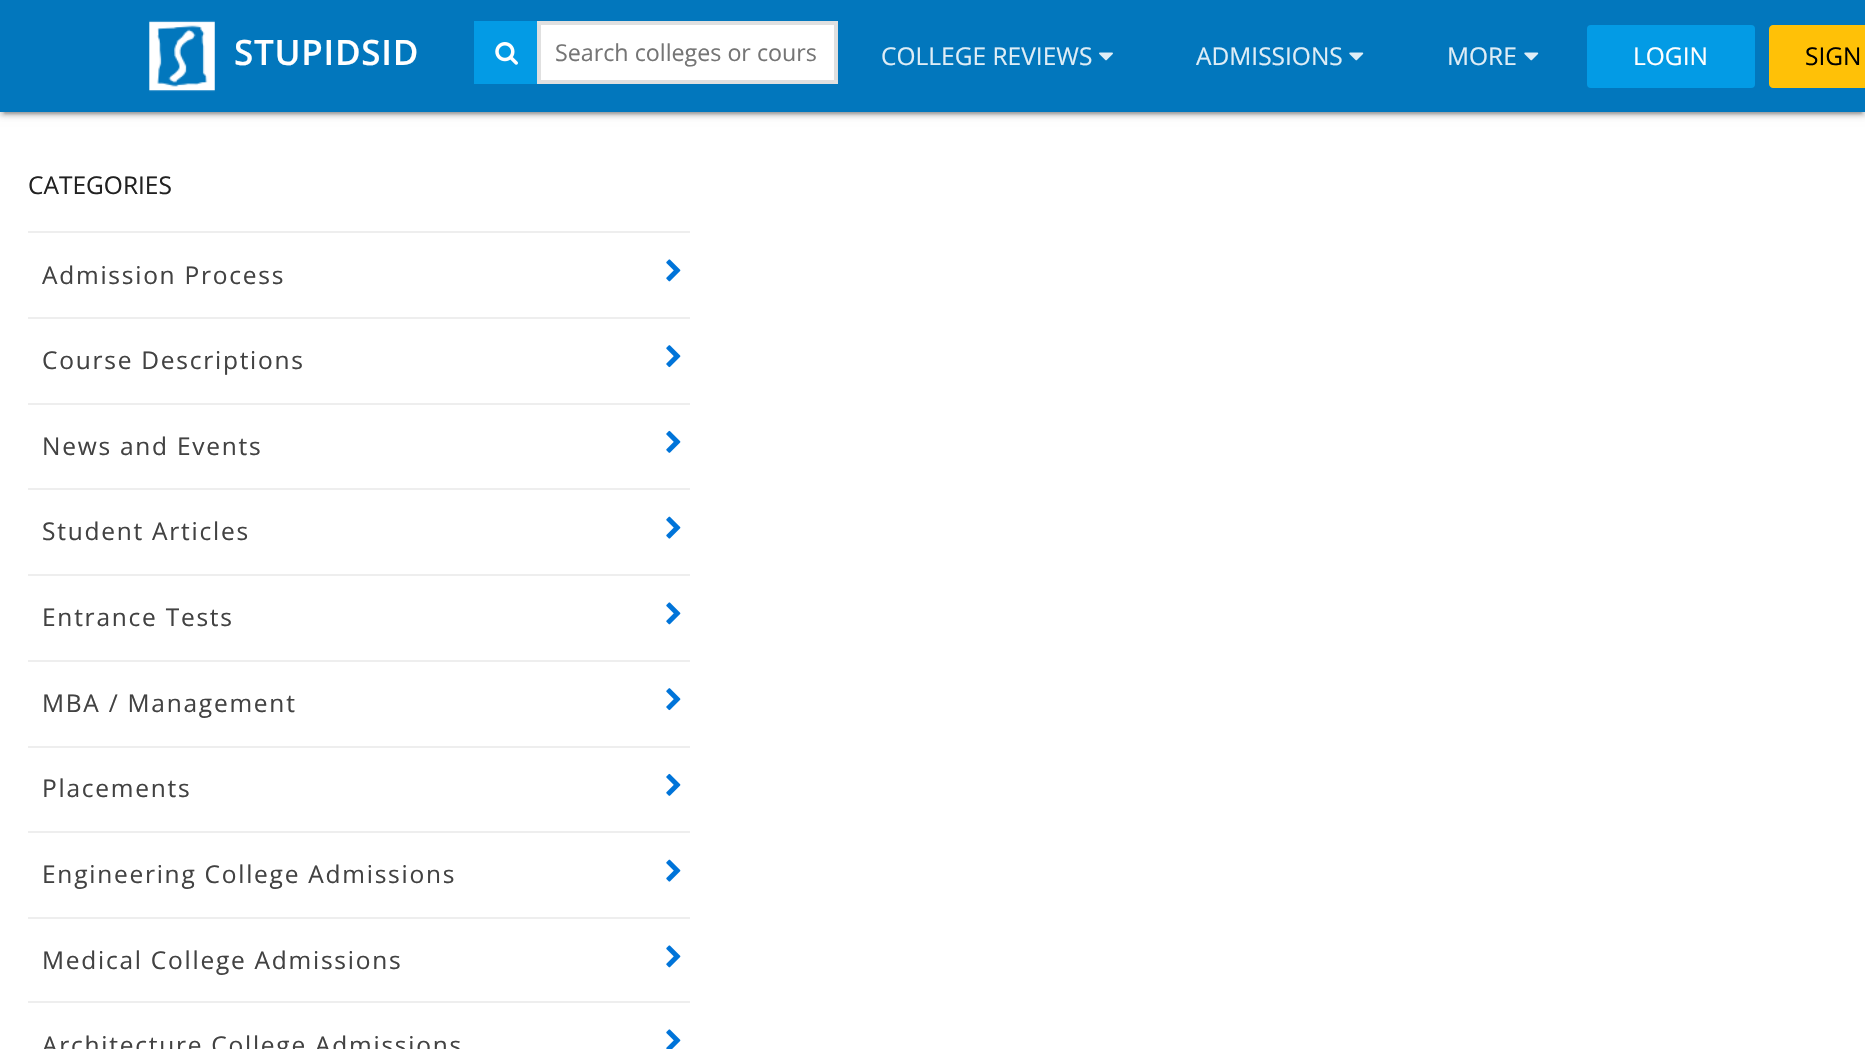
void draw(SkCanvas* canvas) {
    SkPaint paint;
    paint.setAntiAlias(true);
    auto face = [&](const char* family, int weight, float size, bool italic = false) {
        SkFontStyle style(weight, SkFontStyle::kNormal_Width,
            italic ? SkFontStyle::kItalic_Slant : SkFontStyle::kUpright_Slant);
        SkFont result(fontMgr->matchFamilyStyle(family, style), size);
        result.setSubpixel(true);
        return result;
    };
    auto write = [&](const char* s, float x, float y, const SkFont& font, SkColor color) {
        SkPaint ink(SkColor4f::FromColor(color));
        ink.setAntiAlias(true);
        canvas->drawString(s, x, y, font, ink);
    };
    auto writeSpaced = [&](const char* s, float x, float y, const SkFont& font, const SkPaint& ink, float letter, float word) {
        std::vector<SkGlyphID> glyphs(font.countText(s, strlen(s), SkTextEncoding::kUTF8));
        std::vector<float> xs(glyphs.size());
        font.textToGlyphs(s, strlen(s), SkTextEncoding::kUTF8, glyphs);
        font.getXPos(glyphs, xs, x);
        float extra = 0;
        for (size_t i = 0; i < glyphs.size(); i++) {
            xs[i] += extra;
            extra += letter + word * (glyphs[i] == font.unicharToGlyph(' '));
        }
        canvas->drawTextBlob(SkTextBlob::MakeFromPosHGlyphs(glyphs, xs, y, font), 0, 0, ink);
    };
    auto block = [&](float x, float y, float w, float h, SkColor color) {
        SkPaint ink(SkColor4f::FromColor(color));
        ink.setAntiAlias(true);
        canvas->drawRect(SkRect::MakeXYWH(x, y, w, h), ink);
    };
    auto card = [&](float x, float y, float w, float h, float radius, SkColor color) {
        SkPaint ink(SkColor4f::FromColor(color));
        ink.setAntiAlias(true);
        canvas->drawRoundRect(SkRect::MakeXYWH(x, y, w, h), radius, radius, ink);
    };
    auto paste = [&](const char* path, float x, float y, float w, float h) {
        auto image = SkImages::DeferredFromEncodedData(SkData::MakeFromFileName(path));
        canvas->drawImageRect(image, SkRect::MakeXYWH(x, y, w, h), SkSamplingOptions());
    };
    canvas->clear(SK_ColorWHITE);
    paint.setColor(SkColorSetARGB(31, 0, 0, 0));
    paint.setMaskFilter(SkMaskFilter::MakeBlur(kNormal_SkBlurStyle, 4.5f));
    canvas->drawRect(SkRect::MakeXYWH(0, 2, 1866, 112), paint);
    paint.setMaskFilter(nullptr);
    paint.setColor(SkColorSetARGB(51, 0, 0, 0));
    paint.setMaskFilter(SkMaskFilter::MakeBlur(kNormal_SkBlurStyle, 1));
    canvas->drawRect(SkRect::MakeXYWH(4, 9, 1858, 105), paint);
    paint.setMaskFilter(nullptr);
    paint.setColor(SkColorSetARGB(36, 0, 0, 0));
    paint.setMaskFilter(SkMaskFilter::MakeBlur(kNormal_SkBlurStyle, 2));
    canvas->drawRect(SkRect::MakeXYWH(0, 4, 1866, 112), paint);
    paint.setMaskFilter(nullptr);
    block(0, 0, 1865, 112, SkColorSetRGB(2, 119, 189));
    paste("pic1.png", 149, 20, 66, 72);
    auto kFont1 = face("Open Sans", 600, 35);
    paint.setColor(SK_ColorWHITE);
    writeSpaced("STUPIDSID", 234, 65, kFont1, paint, 0.75f, 0);
    block(474, 21, 63, 63, SkColorSetRGB(3, 155, 229));
    paste("pic2.png", 495, 42, 23, 23);
    canvas->drawRect(SkRect::MakeXYWH(539, 23, 297, 59), paint);
    paint.setStyle(SkPaint::kStroke_Style);
    paint.setStrokeWidth(4);
    paint.setColor(SkColorSetRGB(224, 224, 224));
    canvas->drawRect(SkRect::MakeXYWH(539, 23, 297, 59), paint);
    auto kFont2 = face("Open Sans", 400, 23.25f);
    write("Search colleges or cours", 555, 61, kFont2, SkColorSetRGB(117, 117, 117));
    auto kFont3 = face("Open Sans", 400, 24.5f);
    write("COLLEGE REVIEWS", 881, 65, kFont3, SkColorSetRGB(222, 237, 246));
    paste("pic3.png", 1099, 52, 14, 9);
    write("ADMISSIONS", 1196, 65, kFont3, SkColorSetRGB(222, 237, 246));
    paste("pic4.png", 1349, 52, 15, 9);
    write("MORE", 1447, 65, kFont3, SkColorSetRGB(222, 237, 246));
    paste("pic4.png", 1524, 52, 15, 9);
    card(1587, 25, 168, 63, 4, SkColorSetRGB(3, 155, 229));
    write("LOGIN", 1633, 65, kFont3, SK_ColorWHITE);
    paint.setStyle(SkPaint::kFill_Style);
    paint.setColor(SkColorSetRGB(255, 193, 7));
    canvas->drawPath(SkPathBuilder().moveTo(1773, 25).lineTo(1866, 25).lineTo(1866, 88).lineTo(1773, 88).cubicTo(1771, 88, 1769, 86, 1769, 84).lineTo(1769, 29).cubicTo(1769, 27, 1771, 25, 1773, 25).close().detach(), paint);
    write("SIGN", 1805, 65, kFont3, SK_ColorBLACK);
    write("CATEGORIES", 28, 194, kFont3, SkColorSetRGB(33, 33, 33));
    block(28, 231, 662, 2, SkColorSetRGB(238, 238, 238));
    block(28, 317, 662, 2, SkColorSetRGB(238, 238, 238));
    paint.setColor(SkColorSetRGB(66, 66, 66));
    writeSpaced("Admission Process", 42, 284, kFont3, paint, 1.75f, 0);
    paste("pic5.png", 666, 259, 15, 23);
    block(28, 403, 662, 2, SkColorSetRGB(238, 238, 238));
    writeSpaced("Course Descriptions", 42, 369, kFont3, paint, 1.75f, 0);
    paste("pic6.png", 666, 345, 15, 23);
    block(28, 488, 662, 2, SkColorSetRGB(238, 238, 238));
    writeSpaced("News and Events", 42, 455, kFont3, paint, 1.75f, 0);
    paste("pic7.png", 666, 430, 15, 23);
    block(28, 574, 662, 2, SkColorSetRGB(238, 238, 238));
    writeSpaced("Student Articles", 42, 540, kFont3, paint, 1.75f, 0);
    paste("pic8.png", 666, 516, 15, 23);
    block(28, 660, 662, 2, SkColorSetRGB(238, 238, 238));
    writeSpaced("Entrance Tests", 42, 626, kFont3, paint, 1.75f, 0);
    paste("pic5.png", 666, 602, 15, 23);
    block(28, 746, 662, 2, SkColorSetRGB(238, 238, 238));
    writeSpaced("MBA / Management", 42, 712, kFont3, paint, 1.75f, 0);
    paste("pic6.png", 666, 688, 15, 23);
    block(28, 831, 662, 2, SkColorSetRGB(238, 238, 238));
    writeSpaced("Placements", 42, 797, kFont3, paint, 1.75f, 0);
    paste("pic7.png", 666, 773, 15, 23);
    block(28, 917, 662, 2, SkColorSetRGB(238, 238, 238));
    writeSpaced("Engineering College Admissions", 42, 883, kFont3, paint, 1.75f, 0);
    paste("pic8.png", 666, 859, 15, 23);
    block(28, 1001, 662, 2, SkColorSetRGB(238, 238, 238));
    writeSpaced("Medical College Admissions", 42, 969, kFont3, paint, 1.75f, 0);
    paste("pic5.png", 666, 945, 15, 23);
    writeSpaced("Architecture College Admissions", 42, 1054, kFont3, paint, 1.75f, 0);
    paste("pic9.png", 666, 1029, 15, 20);
}
